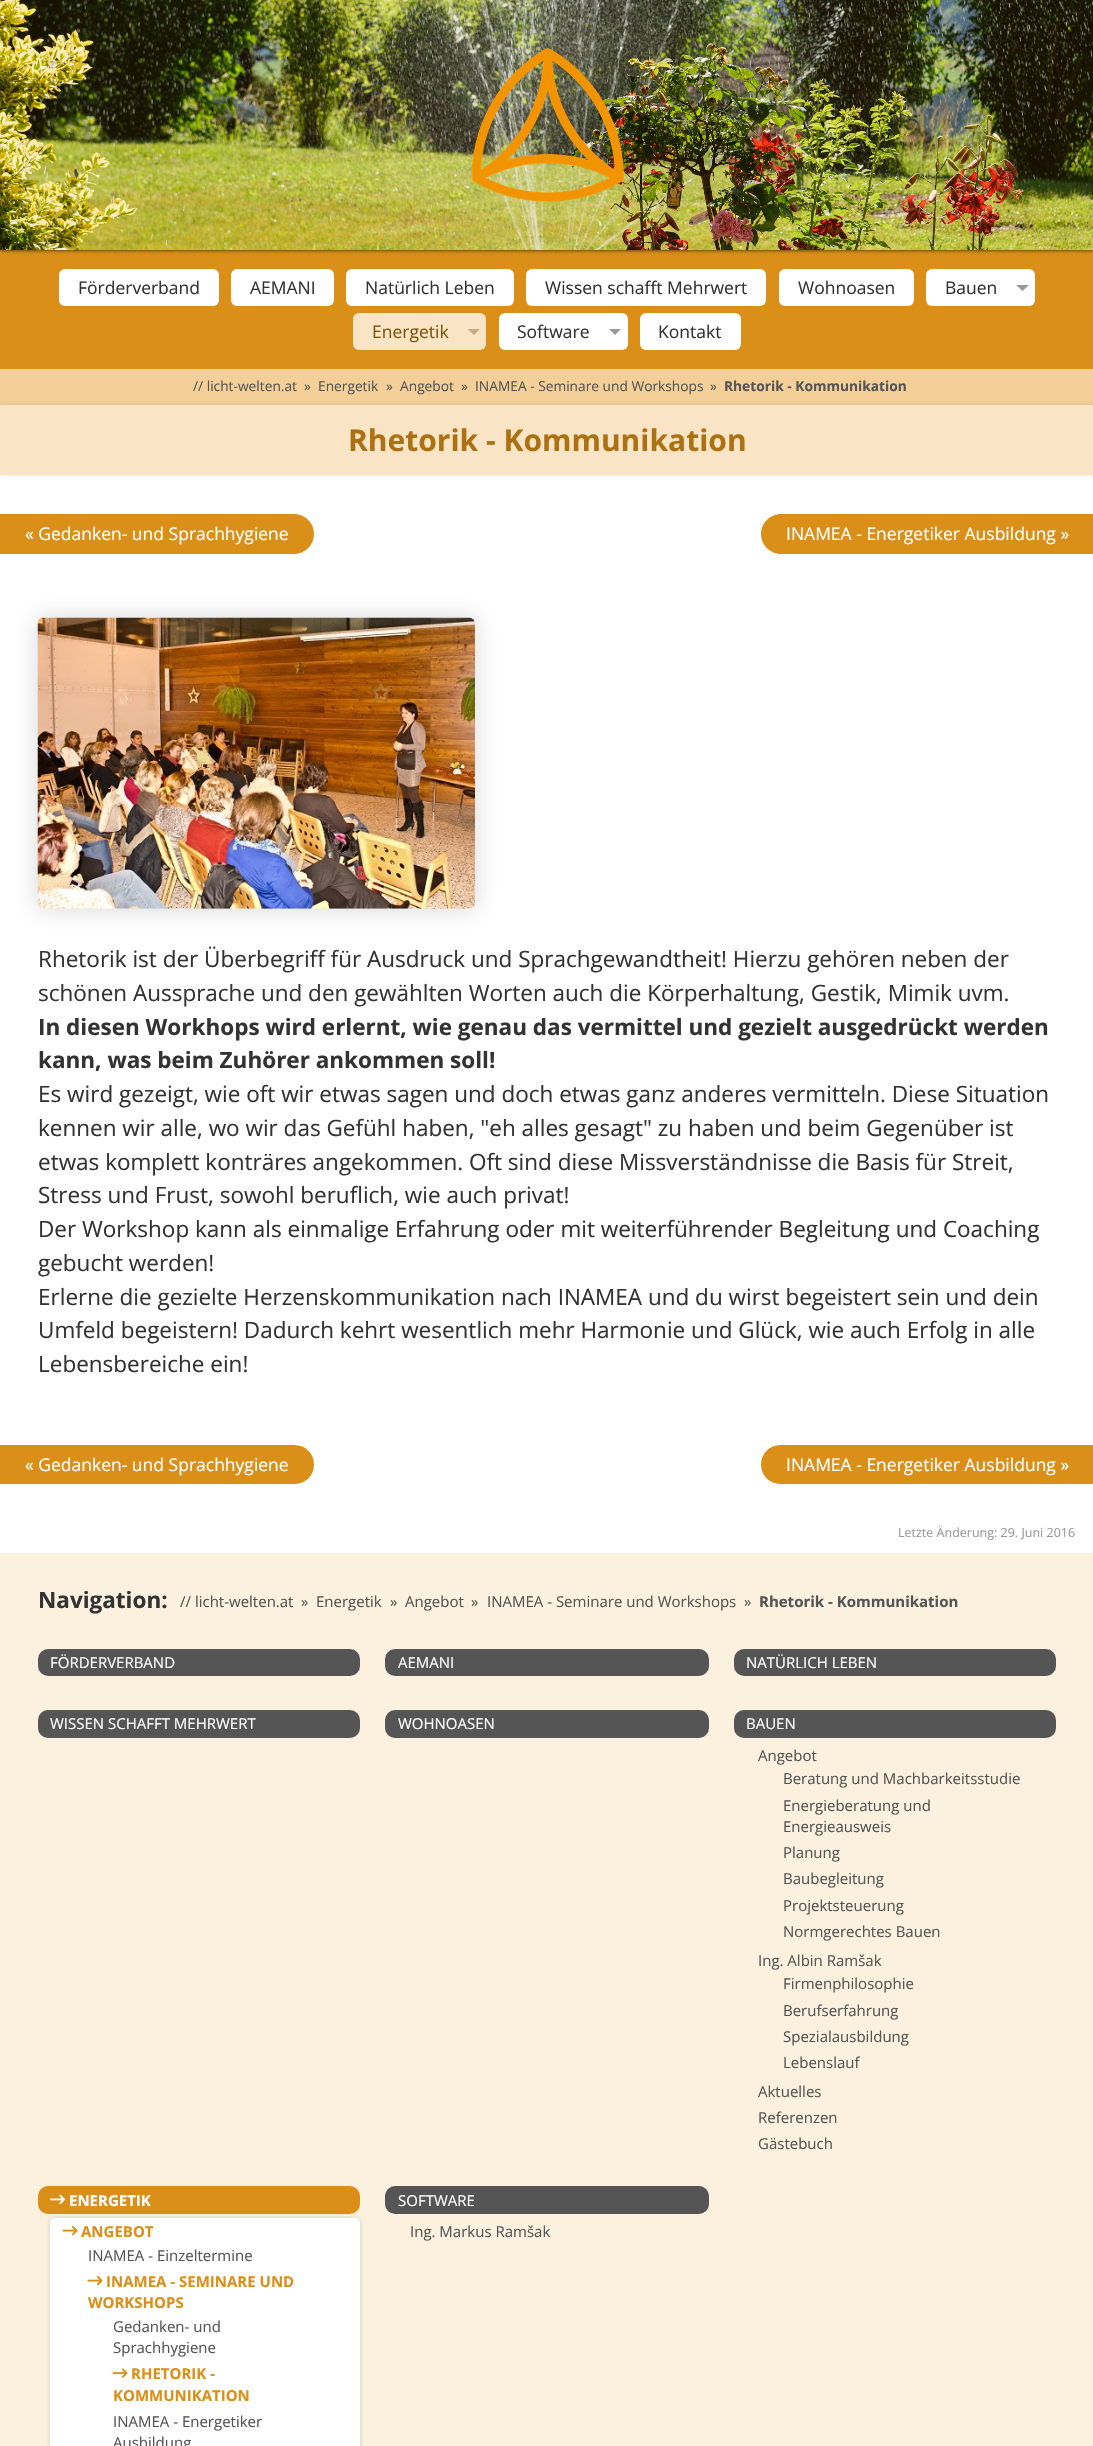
void draw(SkCanvas* canvas) {
    SkPaint paint;
    paint.setAntiAlias(true);
    auto face = [&](const char* family, int weight, float size, bool italic = false) {
        SkFontStyle style(weight, SkFontStyle::kNormal_Width,
            italic ? SkFontStyle::kItalic_Slant : SkFontStyle::kUpright_Slant);
        SkFont result(fontMgr->matchFamilyStyle(family, style), size);
        result.setSubpixel(true);
        return result;
    };
    auto write = [&](const char* s, float x, float y, const SkFont& font, SkColor color) {
        SkPaint ink(SkColor4f::FromColor(color));
        ink.setAntiAlias(true);
        canvas->drawString(s, x, y, font, ink);
    };
    auto block = [&](float x, float y, float w, float h, SkColor color) {
        SkPaint ink(SkColor4f::FromColor(color));
        ink.setAntiAlias(true);
        canvas->drawRect(SkRect::MakeXYWH(x, y, w, h), ink);
    };
    auto card = [&](float x, float y, float w, float h, float radius, SkColor color) {
        SkPaint ink(SkColor4f::FromColor(color));
        ink.setAntiAlias(true);
        canvas->drawRoundRect(SkRect::MakeXYWH(x, y, w, h), radius, radius, ink);
    };
    auto paste = [&](const char* path, float x, float y, float w, float h) {
        auto image = SkImages::DeferredFromEncodedData(SkData::MakeFromFileName(path));
        canvas->drawImageRect(image, SkRect::MakeXYWH(x, y, w, h), SkSamplingOptions());
    };
    canvas->clear(SK_ColorWHITE);
    block(0, 250, 1093, 119, SkColorSetRGB(218, 143, 24));
    paint.setColor(SkColorSetARGB(204, 0, 0, 0));
    paint.setMaskFilter(SkMaskFilter::MakeBlur(kNormal_SkBlurStyle, 2));
    canvas->drawRect(SkRect::MakeXYWH(0, 0, 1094, 250), paint);
    paint.setMaskFilter(nullptr);
    paste("pic1.png", 0, 0, 1093, 250);
    paste("pic2.png", 471, 48, 153, 154);
    card(59, 269, 160, 37, 6, SK_ColorWHITE);
    auto kFont1 = face("Open Sans", 400, 17.5f);
    write("Förderverband", 78, 294, kFont1, SkColorSetRGB(51, 51, 51));
    card(231, 269, 103, 37, 6, SK_ColorWHITE);
    write("AEMANI", 250, 294, kFont1, SkColorSetRGB(51, 51, 51));
    card(346, 269, 168, 37, 6, SK_ColorWHITE);
    write("Natürlich Leben", 365, 294, kFont1, SkColorSetRGB(51, 51, 51));
    card(526, 269, 240, 37, 6, SK_ColorWHITE);
    write("Wissen schafft Mehrwert", 545, 294, kFont1, SkColorSetRGB(51, 51, 51));
    card(779, 269, 135, 37, 6, SK_ColorWHITE);
    write("Wohnoasen", 798, 294, kFont1, SkColorSetRGB(51, 51, 51));
    card(926, 269, 109, 37, 6, SK_ColorWHITE);
    write("Bauen", 945, 294, kFont1, SkColorSetRGB(51, 51, 51));
    paint.setColor(SkColorSetRGB(153, 153, 153));
    canvas->drawPath(SkPathBuilder().moveTo(1016, 285).lineTo(1029, 285).lineTo(1022.5f, 291).close().detach(), paint);
    card(353, 313, 133, 37, 6, SkColorSetRGB(249, 229, 197));
    write("Energetik", 372, 338, kFont1, SkColorSetRGB(126, 82, 14));
    paint.setColor(SkColorSetRGB(200, 170, 124));
    canvas->drawPath(SkPathBuilder().moveTo(467.5f, 329).lineTo(480, 329).lineTo(474, 335).close().detach(), paint);
    card(499, 313, 129, 37, 6, SK_ColorWHITE);
    write("Software", 517, 338, kFont1, SkColorSetRGB(51, 51, 51));
    paint.setColor(SkColorSetRGB(153, 153, 153));
    canvas->drawPath(SkPathBuilder().moveTo(609, 329).lineTo(621, 329).lineTo(615, 335).close().detach(), paint);
    card(640, 313, 101, 37, 6, SK_ColorWHITE);
    write("Kontakt", 658, 338, kFont1, SkColorSetRGB(51, 51, 51));
    block(0, 369, 1093, 36, SkColorSetRGB(244, 208, 152));
    auto kFont2 = face("Open Sans", 400, 13.75f);
    write("// licht-welten.at", 193, 391, kFont2, SkColorSetRGB(85, 85, 85));
    write("»", 304, 391, kFont2, SkColorSetRGB(85, 85, 85));
    write("Energetik", 318, 391, kFont2, SkColorSetRGB(85, 85, 85));
    write("»", 386, 391, kFont2, SkColorSetRGB(85, 85, 85));
    write("Angebot", 400, 391, kFont2, SkColorSetRGB(85, 85, 85));
    write("»", 461, 391, kFont2, SkColorSetRGB(85, 85, 85));
    write("INAMEA - Seminare und Workshops", 475, 391, kFont2, SkColorSetRGB(85, 85, 85));
    write("»", 710, 391, kFont2, SkColorSetRGB(85, 85, 85));
    auto kFont3 = face("Open Sans", 700, 13.75f);
    write("Rhetorik - Kommunikation", 724, 391, kFont3, SkColorSetRGB(85, 85, 85));
    paint.setColor(SkColorSetARGB(26, 0, 0, 0));
    paint.setMaskFilter(SkMaskFilter::MakeBlur(kNormal_SkBlurStyle, 2));
    canvas->drawRect(SkRect::MakeXYWH(0, 405, 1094, 70), paint);
    paint.setMaskFilter(nullptr);
    block(0, 405, 1093, 70, SkColorSetRGB(249, 229, 197));
    auto kFont4 = face("Open Sans", 700, 30);
    write("Rhetorik - Kommunikation", 348, 451, kFont4, SkColorSetRGB(172, 113, 19));
    paint.setColor(SkColorSetRGB(218, 143, 24));
    canvas->drawPath(SkPathBuilder().moveTo(0, 514).lineTo(294, 514).cubicTo(305, 514, 314, 523, 314, 534).cubicTo(314, 545, 305, 554, 294, 554).lineTo(0, 554).close().detach(), paint);
    write("« Gedanken- und Sprachhygiene", 25, 540, kFont1, SK_ColorWHITE);
    canvas->drawPath(SkPathBuilder().moveTo(781, 514).lineTo(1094, 514).lineTo(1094, 554).lineTo(781, 554).cubicTo(770, 554, 761, 545, 761, 534).cubicTo(761, 523, 770, 514, 781, 514).close().detach(), paint);
    write("INAMEA - Energetiker Ausbildung »", 786, 540, kFont1, SK_ColorWHITE);
    paint.setColor(SkColorSetARGB(48, 50, 50, 50));
    paint.setMaskFilter(SkMaskFilter::MakeBlur(kNormal_SkBlurStyle, 12.5f));
    canvas->drawRoundRect(SkRect::MakeXYWH(38, 618, 437, 291), 6, 6, paint);
    paint.setMaskFilter(nullptr);
    paste("pic3.png", 37, 617, 438, 292);
    auto kFont5 = face("Open Sans", 400, 22.5f);
    write("Rhetorik ist der Überbegriff für Ausdruck und Sprachgewandtheit! Hierzu gehören neben der", 38, 967, kFont5, SkColorSetRGB(51, 51, 51));
    write("schönen Aussprache und den gewählten Worten auch die Körperhaltung, Gestik, Mimik uvm.", 38, 1001, kFont5, SkColorSetRGB(51, 51, 51));
    auto kFont6 = face("Open Sans", 700, 22.5f);
    write("In diesen Workhops wird erlernt, wie genau das vermittel und gezielt ausgedrückt werden", 38, 1035, kFont6, SkColorSetRGB(51, 51, 51));
    write("kann, was beim Zuhörer ankommen soll!", 38, 1068, kFont6, SkColorSetRGB(51, 51, 51));
    write("Es wird gezeigt, wie oft wir etwas sagen und doch etwas ganz anderes vermitteln. Diese Situation", 38, 1102, kFont5, SkColorSetRGB(51, 51, 51));
    write("kennen wir alle, wo wir das Gefühl haben, \"eh alles gesagt\" zu haben und beim Gegenüber ist", 38, 1136, kFont5, SkColorSetRGB(51, 51, 51));
    write("etwas komplett konträres angekommen. Oft sind diese Missverständnisse die Basis für Streit,", 38, 1170, kFont5, SkColorSetRGB(51, 51, 51));
    write("Stress und Frust, sowohl beruflich, wie auch privat!", 38, 1203, kFont5, SkColorSetRGB(51, 51, 51));
    write("Der Workshop kann als einmalige Erfahrung oder mit weiterführender Begleitung und Coaching", 38, 1237, kFont5, SkColorSetRGB(51, 51, 51));
    write("gebucht werden!", 38, 1271, kFont5, SkColorSetRGB(51, 51, 51));
    write("Erlerne die gezielte Herzenskommunikation nach INAMEA und du wirst begeistert sein und dein", 38, 1305, kFont5, SkColorSetRGB(51, 51, 51));
    write("Umfeld begeistern! Dadurch kehrt wesentlich mehr Harmonie und Glück, wie auch Erfolg in alle", 38, 1338, kFont5, SkColorSetRGB(51, 51, 51));
    write("Lebensbereiche ein!", 38, 1372, kFont5, SkColorSetRGB(51, 51, 51));
    paint.setColor(SkColorSetRGB(218, 143, 24));
    canvas->drawPath(SkPathBuilder().moveTo(0, 1445).lineTo(294.5f, 1445).cubicTo(305.5f, 1445, 314, 1453.5f, 314, 1464.5f).cubicTo(314, 1475.5f, 305.5f, 1484, 294.5f, 1484).lineTo(0, 1484).close().detach(), paint);
    write("« Gedanken- und Sprachhygiene", 25, 1471, kFont1, SK_ColorWHITE);
    canvas->drawPath(SkPathBuilder().moveTo(780.5f, 1445).lineTo(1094, 1445).lineTo(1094, 1484).lineTo(780.5f, 1484).cubicTo(769.5f, 1484, 761, 1475.5f, 761, 1464.5f).cubicTo(761, 1453.5f, 769.5f, 1445, 780.5f, 1445).close().detach(), paint);
    write("INAMEA - Energetiker Ausbildung »", 786, 1471, kFont1, SK_ColorWHITE);
    auto kFont7 = face("Open Sans", 400, 12.5f);
    write("Letzte Änderung: 29. Juni 2016", 898, 1537, kFont7, SkColorSetRGB(153, 153, 153));
    block(0, 1553, 1093, 893, SkColorSetRGB(251, 241, 222));
    write("Navigation:", 38, 1608, kFont6, SkColorSetRGB(51, 51, 51));
    auto kFont8 = face("Open Sans", 400, 15);
    write("// licht-welten.at", 180, 1607, kFont8, SkColorSetRGB(85, 85, 85));
    write("»", 301, 1607, kFont8, SkColorSetRGB(85, 85, 85));
    write("Energetik", 316, 1607, kFont8, SkColorSetRGB(85, 85, 85));
    write("»", 390, 1607, kFont8, SkColorSetRGB(85, 85, 85));
    write("Angebot", 405, 1607, kFont8, SkColorSetRGB(85, 85, 85));
    write("»", 471, 1607, kFont8, SkColorSetRGB(85, 85, 85));
    write("INAMEA - Seminare und Workshops", 487, 1607, kFont8, SkColorSetRGB(85, 85, 85));
    write("»", 744, 1607, kFont8, SkColorSetRGB(85, 85, 85));
    auto kFont9 = face("Open Sans", 700, 15);
    write("Rhetorik - Kommunikation", 759, 1607, kFont9, SkColorSetRGB(85, 85, 85));
    card(38, 1649, 322, 27, 10, SkColorSetRGB(85, 85, 85));
    write("FÖRDERVERBAND", 50, 1668, kFont8, SK_ColorWHITE);
    card(385, 1649, 324, 27, 10, SkColorSetRGB(85, 85, 85));
    write("AEMANI", 398, 1668, kFont8, SK_ColorWHITE);
    card(734, 1649, 322, 27, 10, SkColorSetRGB(85, 85, 85));
    write("NATÜRLICH LEBEN", 746, 1668, kFont8, SK_ColorWHITE);
    card(38, 1710, 322, 28, 10, SkColorSetRGB(85, 85, 85));
    write("WISSEN SCHAFFT MEHRWERT", 50, 1729, kFont8, SK_ColorWHITE);
    card(385, 1710, 324, 28, 10, SkColorSetRGB(85, 85, 85));
    write("WOHNOASEN", 398, 1729, kFont8, SK_ColorWHITE);
    card(734, 1710, 322, 28, 10, SkColorSetRGB(85, 85, 85));
    write("BAUEN", 746, 1729, kFont8, SK_ColorWHITE);
    write("Angebot", 758, 1761, kFont8, SkColorSetRGB(85, 85, 85));
    write("Beratung und Machbarkeitsstudie", 783, 1784, kFont8, SkColorSetRGB(85, 85, 85));
    write("Energieberatung und", 783, 1811, kFont8, SkColorSetRGB(85, 85, 85));
    write("Energieausweis", 783, 1832, kFont8, SkColorSetRGB(85, 85, 85));
    write("Planung", 783, 1858, kFont8, SkColorSetRGB(85, 85, 85));
    write("Baubegleitung", 783, 1884, kFont8, SkColorSetRGB(85, 85, 85));
    write("Projektsteuerung", 783, 1911, kFont8, SkColorSetRGB(85, 85, 85));
    write("Normgerechtes Bauen", 783, 1937, kFont8, SkColorSetRGB(85, 85, 85));
    write("Ing. Albin Ramšak", 758, 1966, kFont8, SkColorSetRGB(85, 85, 85));
    write("Firmenphilosophie", 783, 1989, kFont8, SkColorSetRGB(85, 85, 85));
    write("Berufserfahrung", 783, 2016, kFont8, SkColorSetRGB(85, 85, 85));
    write("Spezialausbildung", 783, 2042, kFont8, SkColorSetRGB(85, 85, 85));
    write("Lebenslauf", 783, 2068, kFont8, SkColorSetRGB(85, 85, 85));
    write("Aktuelles", 758, 2097, kFont8, SkColorSetRGB(85, 85, 85));
    write("Referenzen", 758, 2123, kFont8, SkColorSetRGB(85, 85, 85));
    write("Gästebuch", 758, 2149, kFont8, SkColorSetRGB(85, 85, 85));
    card(38, 2186, 322, 28, 10, SkColorSetRGB(218, 143, 24));
    paste("pic4.png", 50, 2194, 15, 10);
    write("ENERGETIK", 69, 2206, kFont9, SK_ColorWHITE);
    paint.setColor(SkColorSetRGB(204, 204, 204));
    paint.setMaskFilter(SkMaskFilter::MakeBlur(kNormal_SkBlurStyle, 2));
    canvas->drawRoundRect(SkRect::MakeXYWH(50, 2218, 310, 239), 5, 5, paint);
    paint.setMaskFilter(nullptr);
    card(50, 2218, 310, 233, 5, SK_ColorWHITE);
    paste("pic5.png", 62, 2226, 16, 10);
    write("ANGEBOT", 81, 2237, kFont9, SkColorSetRGB(218, 143, 24));
    write("INAMEA - Einzeltermine", 88, 2261, kFont8, SkColorSetRGB(85, 85, 85));
    paste("pic5.png", 87, 2276, 16, 10);
    write("INAMEA - SEMINARE UND", 106, 2287, kFont9, SkColorSetRGB(218, 143, 24));
    write("WORKSHOPS", 88, 2308, kFont9, SkColorSetRGB(218, 143, 24));
    write("Gedanken- und", 113, 2332, kFont8, SkColorSetRGB(85, 85, 85));
    write("Sprachhygiene", 113, 2353, kFont8, SkColorSetRGB(85, 85, 85));
    paste("pic6.png", 112, 2368, 16, 10);
    write("RHETORIK -", 131, 2379, kFont9, SkColorSetRGB(218, 143, 24));
    write("KOMMUNIKATION", 113, 2401, kFont9, SkColorSetRGB(218, 143, 24));
    write("INAMEA - Energetiker", 113, 2427, kFont8, SkColorSetRGB(85, 85, 85));
    write("Ausbildung", 113, 2448, kFont8, SkColorSetRGB(85, 85, 85));
    card(385, 2186, 324, 28, 10, SkColorSetRGB(85, 85, 85));
    write("SOFTWARE", 398, 2206, kFont8, SK_ColorWHITE);
    write("Ing. Markus Ramšak", 410, 2237, kFont8, SkColorSetRGB(85, 85, 85));
}
